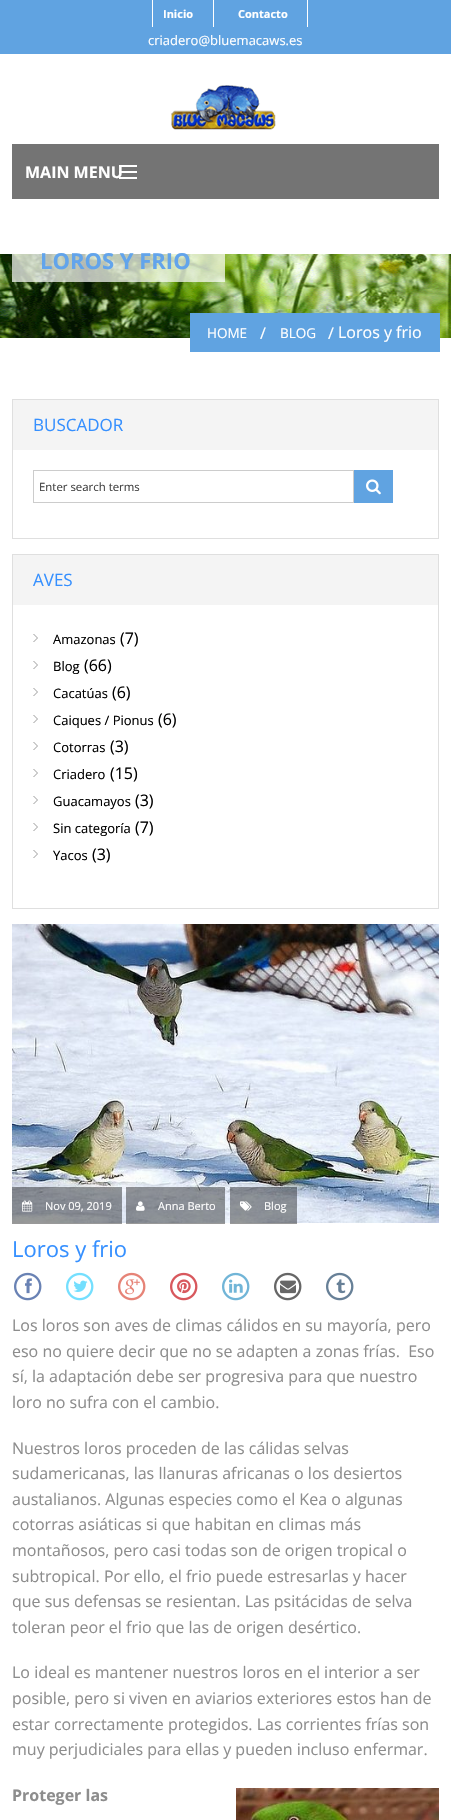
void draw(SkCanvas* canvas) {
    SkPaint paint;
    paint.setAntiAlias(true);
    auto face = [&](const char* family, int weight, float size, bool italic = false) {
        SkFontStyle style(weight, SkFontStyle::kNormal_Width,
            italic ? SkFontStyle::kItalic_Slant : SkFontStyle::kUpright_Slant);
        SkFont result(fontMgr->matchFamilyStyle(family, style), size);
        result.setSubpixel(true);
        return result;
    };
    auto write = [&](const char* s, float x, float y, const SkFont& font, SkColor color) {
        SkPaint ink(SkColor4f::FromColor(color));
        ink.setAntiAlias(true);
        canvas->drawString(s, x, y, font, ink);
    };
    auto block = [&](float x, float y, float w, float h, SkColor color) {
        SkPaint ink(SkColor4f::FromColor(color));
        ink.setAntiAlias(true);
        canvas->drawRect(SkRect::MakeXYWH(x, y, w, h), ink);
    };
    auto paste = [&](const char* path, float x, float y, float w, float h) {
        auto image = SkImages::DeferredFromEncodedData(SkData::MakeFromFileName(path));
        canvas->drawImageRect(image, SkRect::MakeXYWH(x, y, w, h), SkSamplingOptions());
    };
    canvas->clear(SK_ColorWHITE);
    block(0, 0, 451, 54, SkColorSetRGB(96, 163, 225));
    block(213, 0, 1, 27, SK_ColorWHITE);
    block(152, 0, 1, 27, SK_ColorWHITE);
    auto kFont1 = face("Open Sans", 700, 11);
    write("Inicio", 163, 18, kFont1, SK_ColorWHITE);
    block(307, 0, 1, 27, SK_ColorWHITE);
    write("Contacto", 238, 18, kFont1, SK_ColorWHITE);
    auto kFont2 = face("Open Sans", 400, 13);
    write("criadero@bluemacaws.es", 148, 45, kFont2, SK_ColorWHITE);
    paste("pic1.png", 171, 85, 105, 45);
    block(12, 144, 427, 55, SkColorSetRGB(116, 116, 116));
    block(119, 177, 18, 2, SK_ColorWHITE);
    block(119, 171, 18, 2, SK_ColorWHITE);
    block(119, 165, 18, 2, SK_ColorWHITE);
    auto kFont3 = face("Open Sans", 700, 16);
    write("MAIN MENU", 25, 178, kFont3, SK_ColorWHITE);
    paste("pic2.png", 0, 254, 451, 84);
    block(12, 254, 213, 28, SkColorSetARGB(179, 255, 255, 255));
    auto kFont4 = face("Open Sans", 700, 22);
    write("LOROS Y FRIO", 40, 269, kFont4, SkColorSetRGB(98, 164, 235));
    block(190, 313, 250, 39, SkColorSetRGB(96, 163, 225));
    auto kFont5 = face("Open Sans", 400, 13.5f);
    write("HOME", 207, 338, kFont5, SK_ColorWHITE);
    auto kFont6 = face("Open Sans", 400, 16);
    write("/", 260, 339, kFont6, SK_ColorWHITE);
    write("BLOG", 280, 338, kFont5, SK_ColorWHITE);
    write("/", 328, 339, kFont6, SK_ColorWHITE);
    write("Loros y frio", 338, 338, kFont6, SK_ColorWHITE);
    paint.setStyle(SkPaint::kStroke_Style);
    paint.setStrokeWidth(1);
    paint.setColor(SkColorSetRGB(223, 223, 223));
    canvas->drawRect(SkRect::MakeXYWH(12.5f, 399.5f, 426, 139), paint);
    block(13, 400, 425, 50, SkColorSetRGB(244, 244, 244));
    auto kFont7 = face("Open Sans", 400, 17);
    write("BUSCADOR", 33, 431, kFont7, SkColorSetRGB(54, 144, 255));
    paint.setColor(SkColorSetRGB(204, 204, 204));
    canvas->drawRect(SkRect::MakeXYWH(33.5f, 470.5f, 320, 32), paint);
    auto kFont8 = face("Open Sans", 400, 11.4f);
    write("Enter search terms", 39, 491, kFont8, SkColorSetRGB(64, 64, 64));
    block(354, 470, 39, 33, SkColorSetRGB(96, 163, 225));
    paste("pic3.png", 366, 479, 15, 16);
    paint.setColor(SkColorSetRGB(223, 223, 223));
    canvas->drawRect(SkRect::MakeXYWH(12.5f, 554.5f, 426, 354), paint);
    block(13, 555, 425, 50, SkColorSetRGB(244, 244, 244));
    write("AVES", 33, 586, kFont7, SkColorSetRGB(54, 144, 255));
    paste("pic4.png", 33, 634, 5, 8);
    write("Amazonas", 53, 644, kFont2, SK_ColorBLACK);
    write("(7)", 120, 644, kFont6, SK_ColorBLACK);
    paste("pic4.png", 33, 661, 5, 8);
    write("Blog", 53, 671, kFont2, SK_ColorBLACK);
    write("(66)", 84, 671, kFont6, SK_ColorBLACK);
    paste("pic4.png", 33, 688, 5, 8);
    write("Cacatúas", 53, 698, kFont2, SK_ColorBLACK);
    write("(6)", 112, 698, kFont6, SK_ColorBLACK);
    paste("pic4.png", 33, 715, 5, 8);
    write("Caiques / Pionus", 53, 725, kFont2, SK_ColorBLACK);
    write("(6)", 158, 725, kFont6, SK_ColorBLACK);
    paste("pic4.png", 33, 742, 5, 8);
    write("Cotorras", 53, 752, kFont2, SK_ColorBLACK);
    write("(3)", 110, 752, kFont6, SK_ColorBLACK);
    paste("pic4.png", 33, 769, 5, 8);
    write("Criadero", 53, 779, kFont2, SK_ColorBLACK);
    write("(15)", 110, 779, kFont6, SK_ColorBLACK);
    paste("pic4.png", 33, 796, 5, 8);
    write("Guacamayos", 53, 806, kFont2, SK_ColorBLACK);
    write("(3)", 135, 806, kFont6, SK_ColorBLACK);
    paste("pic4.png", 33, 823, 5, 8);
    write("Sin categoría", 53, 833, kFont2, SK_ColorBLACK);
    write("(7)", 135, 833, kFont6, SK_ColorBLACK);
    paste("pic4.png", 33, 850, 5, 8);
    write("Yacos", 53, 860, kFont2, SK_ColorBLACK);
    write("(3)", 92, 860, kFont6, SK_ColorBLACK);
    paste("pic5.png", 12, 924, 427, 299);
    block(12, 1187, 110, 37, SkColorSetARGB(102, 0, 0, 0));
    paste("pic6.png", 22, 1200, 11, 12);
    auto kFont9 = face("Open Sans", 400, 11);
    write("Nov 09, 2019", 45, 1210, kFont9, SK_ColorWHITE);
    block(126, 1187, 99, 37, SkColorSetARGB(102, 0, 0, 0));
    paste("pic7.png", 136, 1201, 9, 10);
    write("Anna Berto", 158, 1210, kFont9, SK_ColorWHITE);
    block(230, 1187, 67, 37, SkColorSetARGB(102, 0, 0, 0));
    paste("pic8.png", 240, 1201, 12, 10);
    write("Blog", 264, 1210, kFont9, SK_ColorWHITE);
    auto kFont10 = face("Open Sans", 400, 22);
    write("Loros y frio", 12, 1257, kFont10, SkColorSetRGB(54, 144, 255));
    paste("pic9.png", 14, 1272, 28, 29);
    paste("pic10.png", 25, 1278, 7, 16);
    paste("pic11.png", 66, 1272, 28, 29);
    paste("pic12.png", 73, 1280, 15, 12);
    paste("pic13.png", 118, 1272, 28, 29);
    paste("pic14.png", 125, 1279, 15, 16);
    paste("pic15.png", 170, 1272, 28, 29);
    paste("pic16.png", 177, 1279, 14, 15);
    paste("pic17.png", 222, 1272, 28, 29);
    paste("pic18.png", 229, 1279, 14, 14);
    paste("pic19.png", 274, 1272, 28, 29);
    paste("pic20.png", 280, 1280, 16, 14);
    paste("pic21.png", 326, 1272, 28, 29);
    paste("pic22.png", 336, 1279, 10, 15);
    write("Los loros son aves de climas cálidos en su mayoría, pero", 12, 1331, kFont6, SkColorSetRGB(141, 141, 141));
    write("eso no quiere decir que no se adapten a zonas frías.  Eso", 12, 1357, kFont6, SkColorSetRGB(141, 141, 141));
    write("sí, la adaptación debe ser progresiva para que nuestro", 12, 1382, kFont6, SkColorSetRGB(141, 141, 141));
    write("loro no sufra con el cambio.", 12, 1408, kFont6, SkColorSetRGB(141, 141, 141));
    write("Nuestros loros proceden de las cálidas selvas", 12, 1454, kFont6, SkColorSetRGB(141, 141, 141));
    write("sudamericanas, las llanuras africanas o los desiertos", 12, 1479, kFont6, SkColorSetRGB(141, 141, 141));
    write("austalianos. Algunas especies como el Kea o algunas", 12, 1505, kFont6, SkColorSetRGB(141, 141, 141));
    write("cotorras asiáticas si que habitan en climas más", 12, 1530, kFont6, SkColorSetRGB(141, 141, 141));
    write("montañosos, pero casi todas son de origen tropical o", 12, 1556, kFont6, SkColorSetRGB(141, 141, 141));
    write("subtropical. Por ello, el frio puede estresarlas y hacer", 12, 1582, kFont6, SkColorSetRGB(141, 141, 141));
    write("que sus defensas se resientan. Las psitácidas de selva", 12, 1607, kFont6, SkColorSetRGB(141, 141, 141));
    write("toleran peor el frio que las de origen desértico.", 12, 1633, kFont6, SkColorSetRGB(141, 141, 141));
    write("Lo ideal es mantener nuestros loros en el interior a ser", 12, 1678, kFont6, SkColorSetRGB(141, 141, 141));
    write("posible, pero si viven en aviarios exteriores estos han de", 12, 1704, kFont6, SkColorSetRGB(141, 141, 141));
    write("estar correctamente protegidos. Las corrientes frías son", 12, 1730, kFont6, SkColorSetRGB(141, 141, 141));
    write("muy perjudiciales para ellas y pueden incluso enfermar.", 12, 1755, kFont6, SkColorSetRGB(141, 141, 141));
    write("Proteger las", 12, 1801, kFont3, SkColorSetRGB(141, 141, 141));
    paste("pic23.png", 236, 1788, 203, 32);
}
